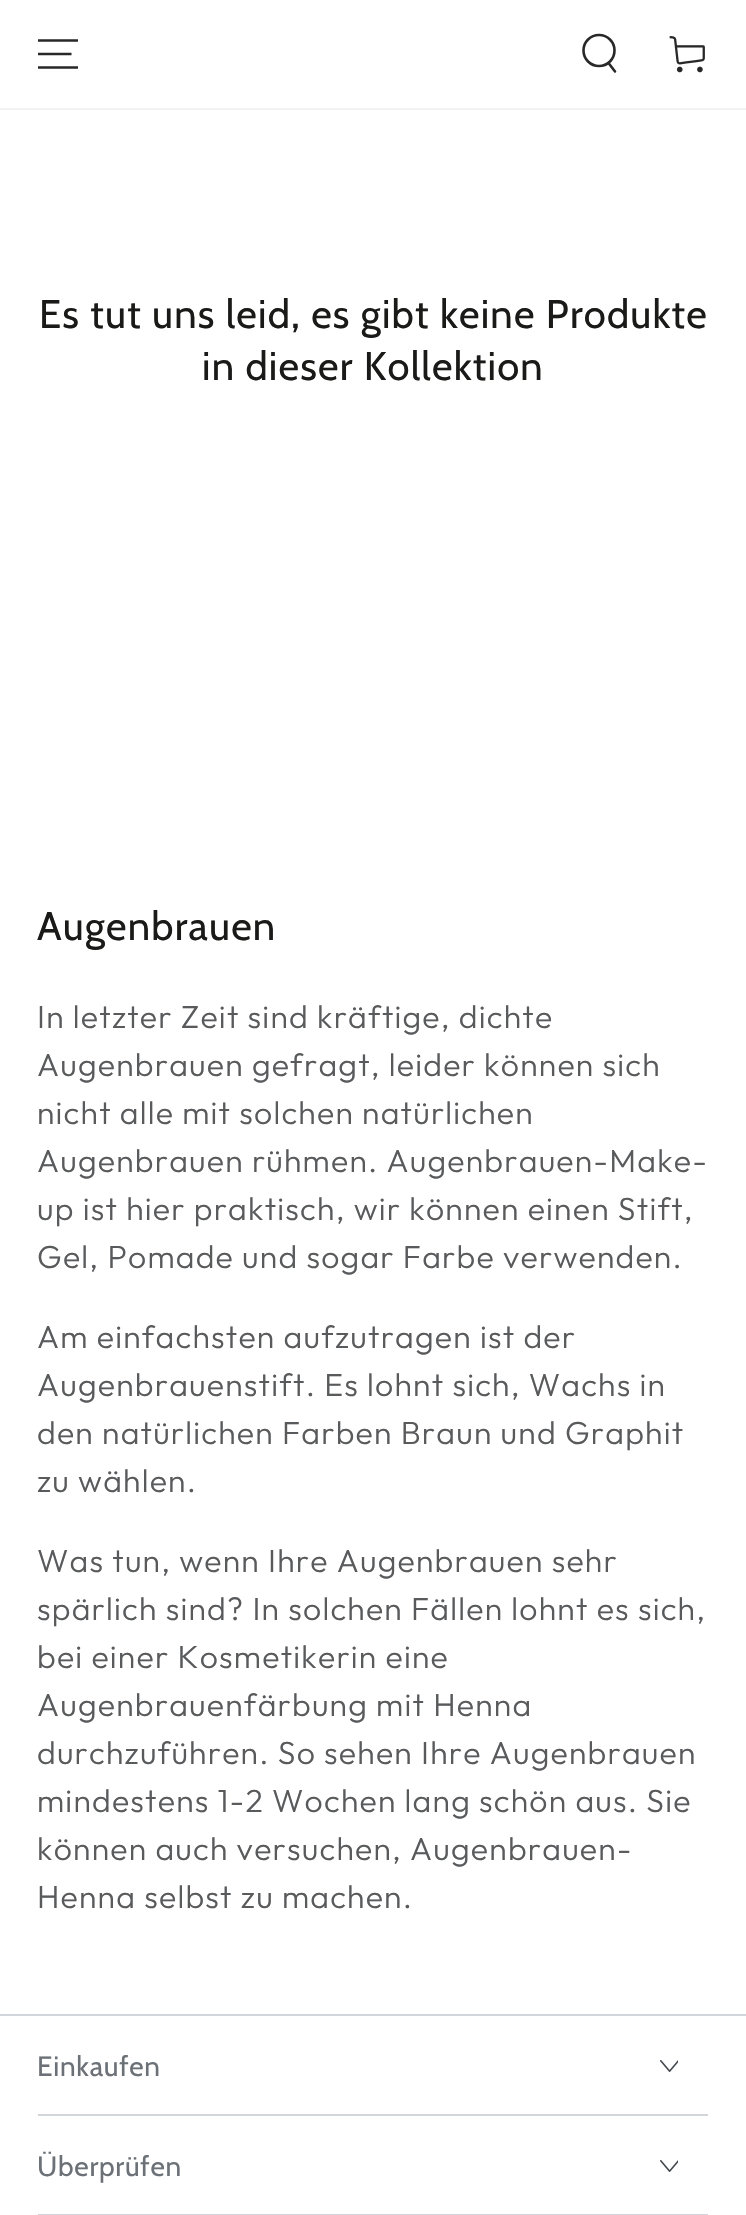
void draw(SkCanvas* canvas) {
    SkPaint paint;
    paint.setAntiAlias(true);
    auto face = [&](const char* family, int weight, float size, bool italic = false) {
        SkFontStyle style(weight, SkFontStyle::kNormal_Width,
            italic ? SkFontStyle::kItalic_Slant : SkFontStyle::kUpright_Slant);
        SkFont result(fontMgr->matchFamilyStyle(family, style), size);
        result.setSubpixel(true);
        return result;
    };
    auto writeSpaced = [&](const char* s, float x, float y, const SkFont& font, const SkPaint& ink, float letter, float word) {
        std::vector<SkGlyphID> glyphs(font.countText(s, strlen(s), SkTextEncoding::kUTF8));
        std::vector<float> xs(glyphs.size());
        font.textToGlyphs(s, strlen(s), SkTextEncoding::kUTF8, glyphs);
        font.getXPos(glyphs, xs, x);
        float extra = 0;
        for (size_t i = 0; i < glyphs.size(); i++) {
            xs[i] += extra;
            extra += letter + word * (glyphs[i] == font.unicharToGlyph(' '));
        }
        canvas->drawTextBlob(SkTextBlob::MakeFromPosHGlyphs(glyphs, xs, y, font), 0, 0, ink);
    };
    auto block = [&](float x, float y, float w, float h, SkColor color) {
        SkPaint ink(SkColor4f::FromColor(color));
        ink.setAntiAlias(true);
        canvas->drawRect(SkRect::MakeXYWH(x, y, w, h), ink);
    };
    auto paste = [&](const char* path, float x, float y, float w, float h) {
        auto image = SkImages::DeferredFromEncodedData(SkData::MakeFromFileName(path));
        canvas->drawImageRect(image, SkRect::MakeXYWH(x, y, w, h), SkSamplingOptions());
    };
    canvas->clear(SK_ColorWHITE);
    block(0, 108, 746, 2, SkColorSetRGB(242, 242, 244));
    paint.setStyle(SkPaint::kStroke_Style);
    paint.setStrokeWidth(2.5f);
    paint.setColor(SkColorSetRGB(40, 40, 40));
    canvas->drawPath(SkPathBuilder().moveTo(38, 67.5f).lineTo(78, 67.5f).moveTo(38, 54).lineTo(71.5f, 54).moveTo(38, 40.5f).lineTo(78, 40.5f).detach(), paint);
    paint.setStrokeWidth(2.6f);
    canvas->drawCircle(599, 50.5f, 15.5f, paint);
    paint.setStrokeCap(SkPaint::kRound_Cap);
    canvas->drawPath(SkPathBuilder().moveTo(608.5f, 63).lineTo(615, 71.5f).detach(), paint);
    paste("pic1.png", 669, 36, 36, 37);
    auto kFont1 = face("Cabin", 400, 40);
    paint.setStyle(SkPaint::kFill_Style);
    paint.setColor(SkColorSetRGB(26, 27, 24));
    writeSpaced("Es tut uns leid, es gibt keine Produkte", 39, 328, kFont1, paint, 1.2f, 0);
    writeSpaced("in dieser Kollektion", 202, 380, kFont1, paint, 1.2f, 0);
    writeSpaced("Augenbrauen", 37, 940, kFont1, paint, 1.2f, 0);
    auto kFont2 = face("Outfit", 300, 32);
    paint.setColor(SkColorSetRGB(89, 90, 92));
    writeSpaced("In letzter Zeit sind kräftige, dichte", 37, 1028, kFont2, paint, 1.2f, 0);
    writeSpaced("Augenbrauen gefragt, leider können sich", 37, 1076, kFont2, paint, 1.2f, 0);
    writeSpaced("nicht alle mit solchen natürlichen", 37, 1124, kFont2, paint, 1.2f, 0);
    writeSpaced("Augenbrauen rühmen. Augenbrauen-Make-", 37, 1172, kFont2, paint, 1.2f, 0);
    writeSpaced("up ist hier praktisch, wir können einen Stift,", 37, 1220, kFont2, paint, 1.2f, 0);
    writeSpaced("Gel, Pomade und sogar Farbe verwenden.", 37, 1268, kFont2, paint, 1.2f, 0);
    writeSpaced("Am einfachsten aufzutragen ist der", 37, 1348, kFont2, paint, 1.2f, 0);
    writeSpaced("Augenbrauenstift. Es lohnt sich, Wachs in", 37, 1396, kFont2, paint, 1.2f, 0);
    writeSpaced("den natürlichen Farben Braun und Graphit", 37, 1444, kFont2, paint, 1.2f, 0);
    writeSpaced("zu wählen.", 37, 1492, kFont2, paint, 1.2f, 0);
    writeSpaced("Was tun, wenn Ihre Augenbrauen sehr", 37, 1572, kFont2, paint, 1.2f, 0);
    writeSpaced("spärlich sind? In solchen Fällen lohnt es sich,", 37, 1620, kFont2, paint, 1.2f, 0);
    writeSpaced("bei einer Kosmetikerin eine", 37, 1668, kFont2, paint, 1.2f, 0);
    writeSpaced("Augenbrauenfärbung mit Henna", 37, 1716, kFont2, paint, 1.2f, 0);
    writeSpaced("durchzuführen. So sehen Ihre Augenbrauen", 37, 1764, kFont2, paint, 1.2f, 0);
    writeSpaced("mindestens 1-2 Wochen lang schön aus. Sie", 37, 1812, kFont2, paint, 1.2f, 0);
    writeSpaced("können auch versuchen, Augenbrauen-", 37, 1860, kFont2, paint, 1.2f, 0);
    writeSpaced("Henna selbst zu machen.", 37, 1908, kFont2, paint, 1.2f, 0);
    block(0, 2014, 746, 2, SkColorSetRGB(210, 213, 217));
    block(38, 2114, 670, 2, SkColorSetRGB(210, 213, 217));
    auto kFont3 = face("Cabin", 400, 28);
    paint.setColor(SkColorSetRGB(107, 113, 119));
    writeSpaced("Einkaufen", 37, 2076, kFont3, paint, 0.75f, 0);
    paste("pic2.png", 660, 2060, 18, 12);
    block(38, 2214, 670, 1, SkColorSetRGB(210, 213, 217));
    writeSpaced("Überprüfen", 37, 2176, kFont3, paint, 0.75f, 0);
    paste("pic2.png", 660, 2160, 18, 12);
}
